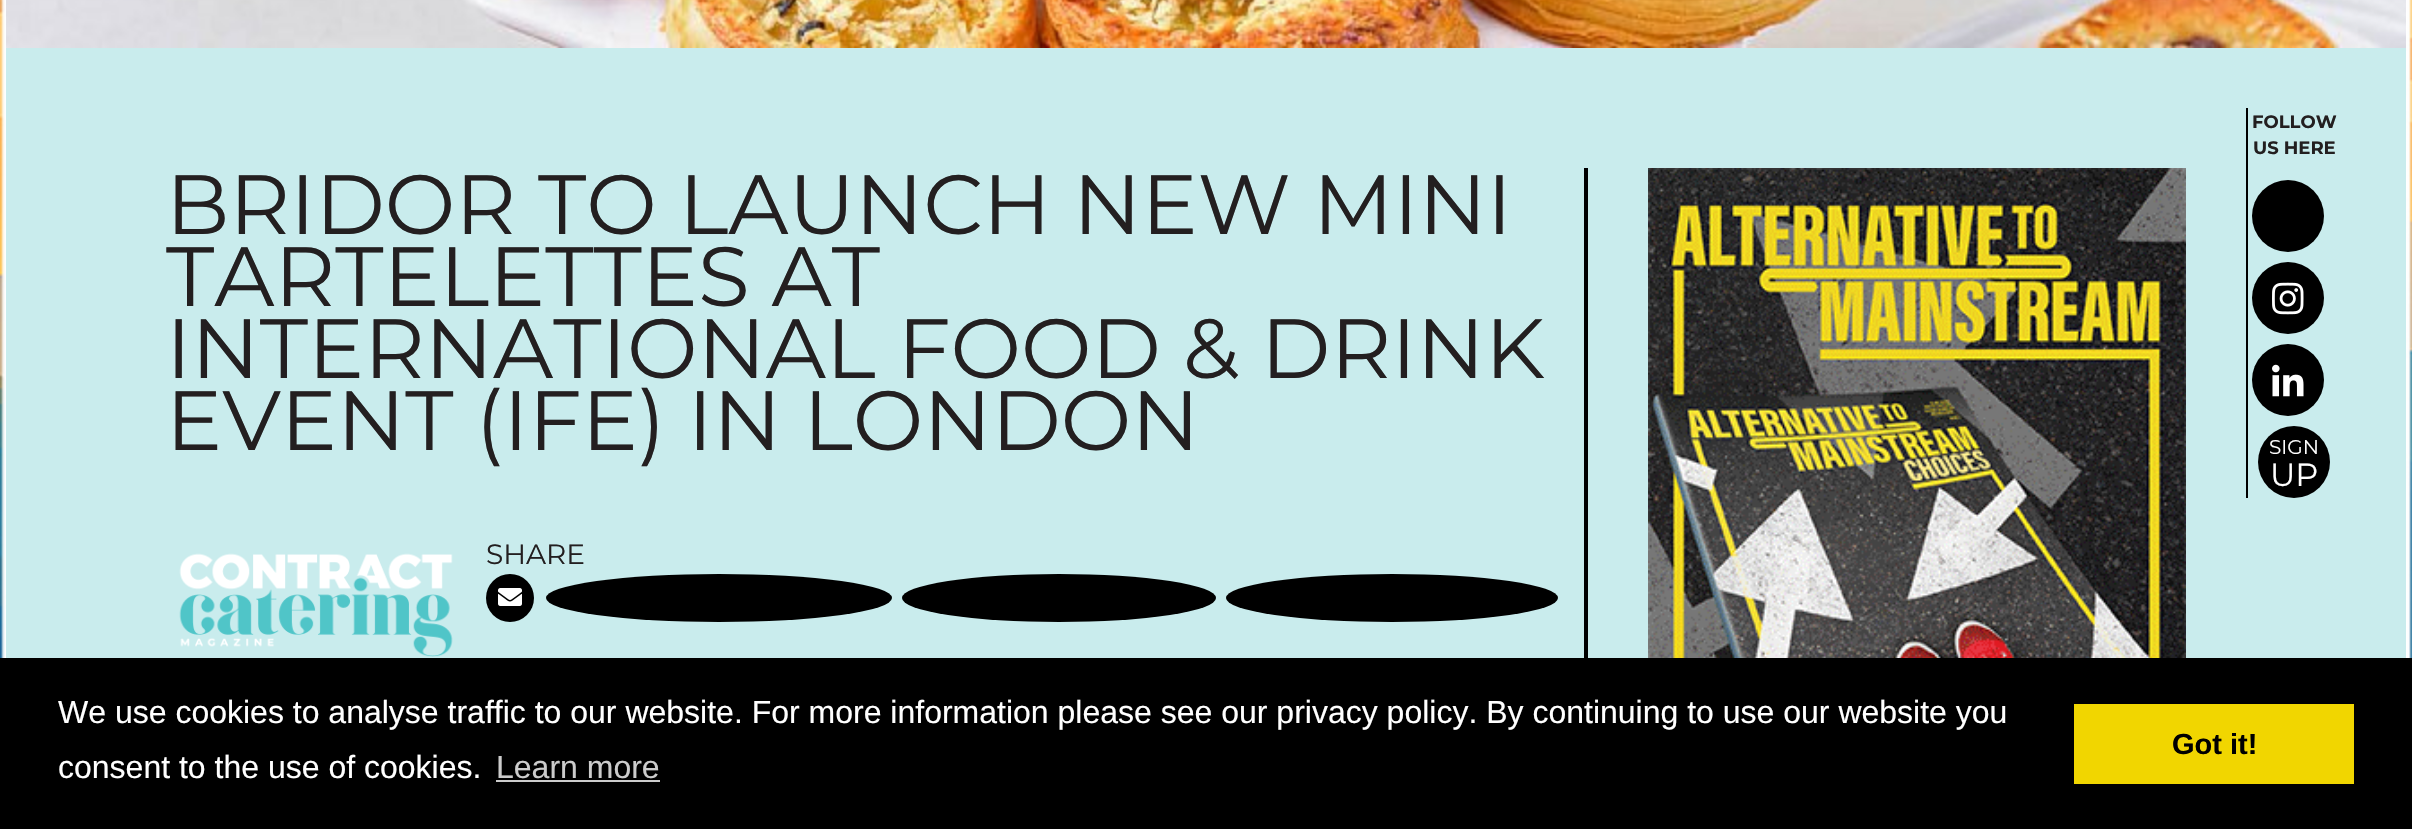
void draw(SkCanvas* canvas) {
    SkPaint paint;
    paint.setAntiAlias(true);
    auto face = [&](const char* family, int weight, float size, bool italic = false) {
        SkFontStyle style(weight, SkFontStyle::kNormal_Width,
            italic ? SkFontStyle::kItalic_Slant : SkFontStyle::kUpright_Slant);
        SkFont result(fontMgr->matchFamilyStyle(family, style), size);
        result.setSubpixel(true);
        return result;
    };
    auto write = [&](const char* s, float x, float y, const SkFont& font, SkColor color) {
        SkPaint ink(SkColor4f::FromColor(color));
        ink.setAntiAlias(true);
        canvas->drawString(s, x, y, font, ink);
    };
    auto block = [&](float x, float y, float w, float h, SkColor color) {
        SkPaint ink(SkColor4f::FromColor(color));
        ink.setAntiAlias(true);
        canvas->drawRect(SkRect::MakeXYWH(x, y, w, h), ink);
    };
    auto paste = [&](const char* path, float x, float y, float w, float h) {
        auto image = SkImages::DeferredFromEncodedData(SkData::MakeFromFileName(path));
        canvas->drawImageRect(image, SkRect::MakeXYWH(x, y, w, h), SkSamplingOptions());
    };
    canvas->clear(SK_ColorWHITE);
    paste("pic1.png", 0, 0, 2412, 658);
    paste("pic2.png", 6, 0, 2400, 48);
    block(6, 48, 2400, 610, SkColorSetRGB(201, 236, 237));
    auto kFont1 = face("Montserrat", 400, 84);
    write("BRIDOR TO LAUNCH NEW MINI", 166, 234, kFont1, SkColorSetRGB(35, 31, 32));
    write("TARTELETTES AT", 166, 306, kFont1, SkColorSetRGB(35, 31, 32));
    write("INTERNATIONAL FOOD & DRINK", 166, 378, kFont1, SkColorSetRGB(35, 31, 32));
    write("EVENT (IFE) IN LONDON", 166, 450, kFont1, SkColorSetRGB(35, 31, 32));
    paste("pic3.png", 179, 553, 274, 104);
    auto kFont2 = face("Montserrat", 400, 28);
    write("SHARE", 486, 564, kFont2, SkColorSetRGB(35, 31, 32));
    paint.setColor(SK_ColorBLACK);
    canvas->drawCircle(510, 598, 24, paint);
    paste("pic4.png", 498, 588, 24, 18);
    canvas->drawOval(SkRect::MakeXYWH(546, 574, 346, 48), paint);
    canvas->drawOval(SkRect::MakeXYWH(902, 574, 314, 48), paint);
    canvas->drawOval(SkRect::MakeXYWH(1226, 574, 332, 48), paint);
    block(1584, 168, 4, 490, SK_ColorBLACK);
    paste("pic5.png", 1648, 168, 538, 490);
    block(2246, 108, 2, 390, SK_ColorBLACK);
    auto kFont3 = face("Montserrat", 700, 18);
    write("FOLLOW", 2252, 128, kFont3, SkColorSetRGB(35, 31, 32));
    write("US HERE", 2253, 154, kFont3, SkColorSetRGB(35, 31, 32));
    canvas->drawCircle(2288, 216, 36, paint);
    canvas->drawCircle(2288, 298, 36, paint);
    paste("pic6.png", 2272, 282, 32, 33);
    canvas->drawCircle(2288, 380, 36, paint);
    paste("pic7.png", 2272, 364, 32, 33);
    canvas->drawCircle(2294, 462, 36, paint);
    auto kFont4 = face("Montserrat", 400, 20);
    write("SIGN", 2269, 454, kFont4, SK_ColorWHITE);
    auto kFont5 = face("Montserrat", 400, 32);
    write("UP", 2270, 486, kFont5, SK_ColorWHITE);
    block(0, 658, 2412, 171, SK_ColorBLACK);
    auto kFont6 = face("Liberation Sans", 400, 32);
    write("We use cookies to analyse traffic to our website. For more information please see our privacy policy. By continuing to use our website you", 58, 723, kFont6, SK_ColorWHITE);
    write("consent to the use of cookies.", 58, 778, kFont6, SK_ColorWHITE);
    write("Learn more", 496, 778, kFont6, SkColorSetRGB(204, 204, 204));
    block(496, 780, 164, 2, SkColorSetRGB(204, 204, 204));
    block(2074, 704, 280, 80, SkColorSetRGB(241, 214, 0));
    auto kFont7 = face("Liberation Sans", 700, 29);
    write("Got it!", 2172, 754, kFont7, SK_ColorBLACK);
}
